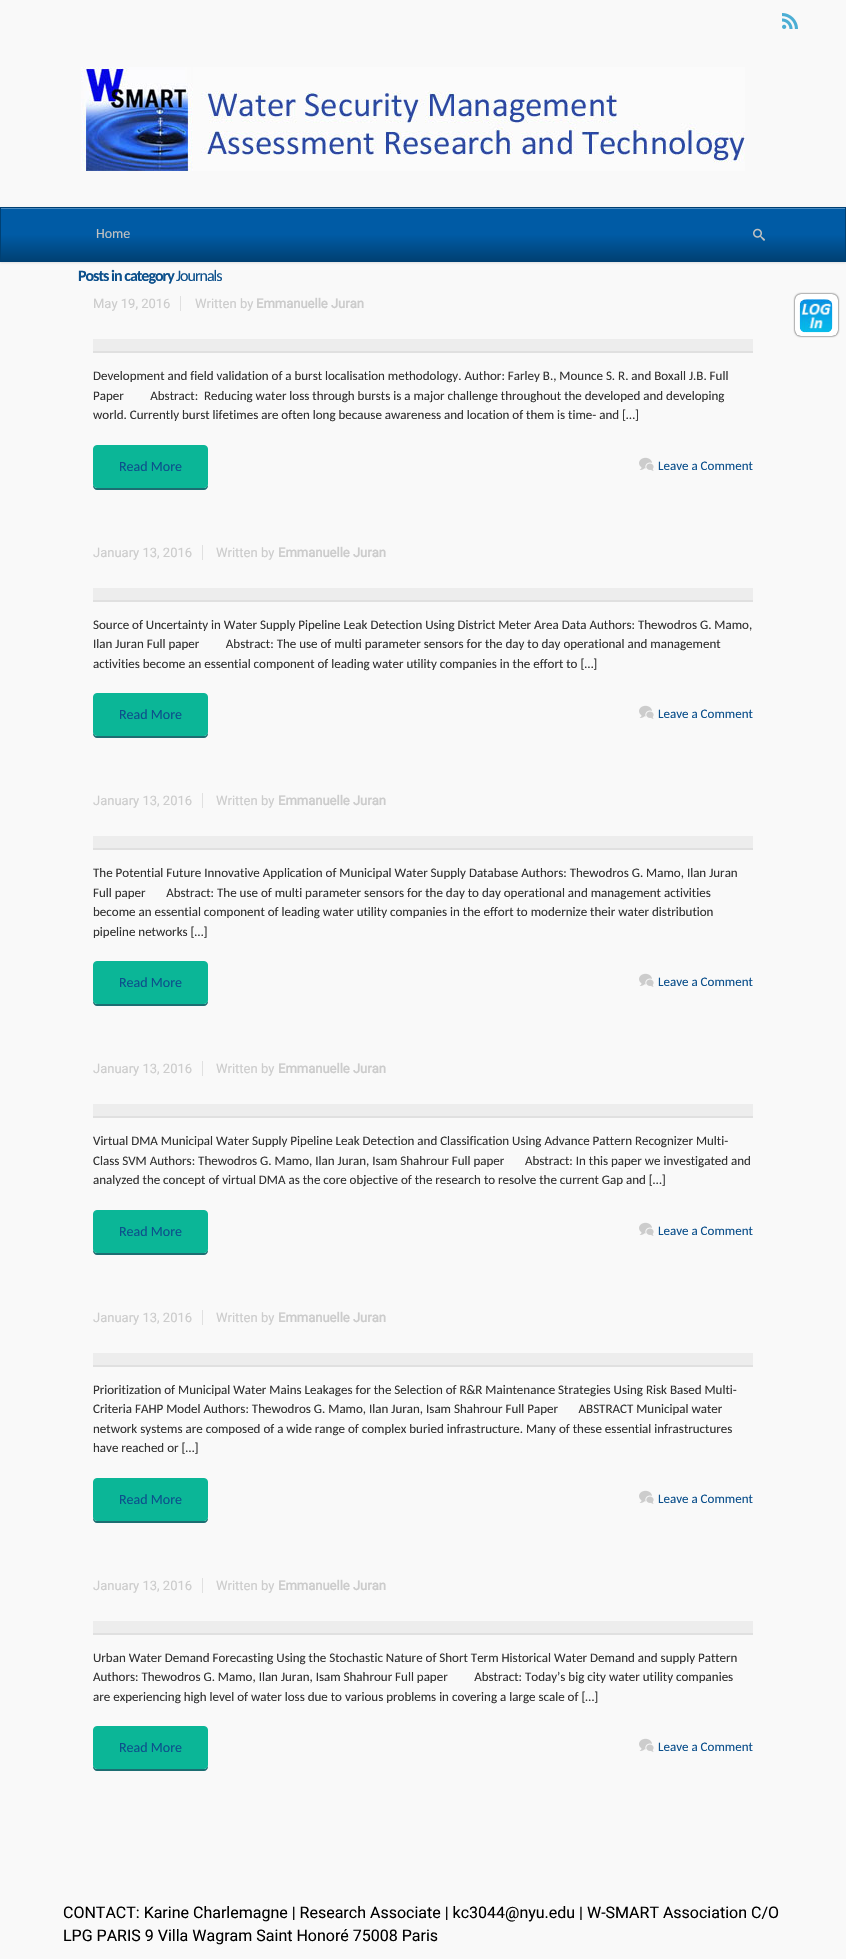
void draw(SkCanvas* canvas) {
    SkPaint paint;
    paint.setAntiAlias(true);
    auto face = [&](const char* family, int weight, float size, bool italic = false) {
        SkFontStyle style(weight, SkFontStyle::kNormal_Width,
            italic ? SkFontStyle::kItalic_Slant : SkFontStyle::kUpright_Slant);
        SkFont result(fontMgr->matchFamilyStyle(family, style), size);
        result.setSubpixel(true);
        return result;
    };
    auto write = [&](const char* s, float x, float y, const SkFont& font, SkColor color) {
        SkPaint ink(SkColor4f::FromColor(color));
        ink.setAntiAlias(true);
        canvas->drawString(s, x, y, font, ink);
    };
    auto writeSpaced = [&](const char* s, float x, float y, const SkFont& font, const SkPaint& ink, float letter, float word) {
        std::vector<SkGlyphID> glyphs(font.countText(s, strlen(s), SkTextEncoding::kUTF8));
        std::vector<float> xs(glyphs.size());
        font.textToGlyphs(s, strlen(s), SkTextEncoding::kUTF8, glyphs);
        font.getXPos(glyphs, xs, x);
        float extra = 0;
        for (size_t i = 0; i < glyphs.size(); i++) {
            xs[i] += extra;
            extra += letter + word * (glyphs[i] == font.unicharToGlyph(' '));
        }
        canvas->drawTextBlob(SkTextBlob::MakeFromPosHGlyphs(glyphs, xs, y, font), 0, 0, ink);
    };
    auto block = [&](float x, float y, float w, float h, SkColor color) {
        SkPaint ink(SkColor4f::FromColor(color));
        ink.setAntiAlias(true);
        canvas->drawRect(SkRect::MakeXYWH(x, y, w, h), ink);
    };
    auto card = [&](float x, float y, float w, float h, float radius, SkColor color) {
        SkPaint ink(SkColor4f::FromColor(color));
        ink.setAntiAlias(true);
        canvas->drawRoundRect(SkRect::MakeXYWH(x, y, w, h), radius, radius, ink);
    };
    auto paste = [&](const char* path, float x, float y, float w, float h) {
        auto image = SkImages::DeferredFromEncodedData(SkData::MakeFromFileName(path));
        canvas->drawImageRect(image, SkRect::MakeXYWH(x, y, w, h), SkSamplingOptions());
    };
    canvas->clear(SkColorSetRGB(249, 249, 249));
    paste("pic1.png", 782, 13, 16, 16);
    paste("pic2.png", 81, 67, 664, 104);
    paint.setColor(SkColorSetARGB(26, 0, 0, 0));
    paint.setMaskFilter(SkMaskFilter::MakeBlur(kNormal_SkBlurStyle, 1));
    canvas->drawRect(SkRect::MakeXYWH(0, 208, 846, 55), paint);
    paint.setMaskFilter(nullptr);
    {
        const SkColor colors[] = {SkColorSetRGB(0, 91, 165), SkColorSetRGB(0, 64, 115)};
        const float stops[] = {0.5f, 1};
        const SkPoint ends[] = {{423, 208}, {423, 261}};
        paint.setShader(SkGradientShader::MakeLinear(ends, colors, stops, 2, SkTileMode::kClamp));
        paint.setAlpha(255);
    }
    canvas->drawRect(SkRect::MakeXYWH(1, 209, 844, 52), paint);
    block(1, 208, 844, 1, SkColorSetRGB(77, 140, 192));
    paint.setStyle(SkPaint::kStroke_Style);
    paint.setStrokeWidth(1);
    paint.setShader(nullptr);
    paint.setColor(SkColorSetRGB(0, 64, 115));
    canvas->drawRect(SkRect::MakeXYWH(0.5f, 207.5f, 845, 54), paint);
    auto kFont1 = face("Carlito", 400, 14);
    write("Home", 96, 238, kFont1, SkColorSetRGB(193, 193, 193));
    paste("pic3.png", 753, 228, 12, 13);
    auto kFont2 = face("Carlito", 700, 16);
    paint.setStyle(SkPaint::kFill_Style);
    paint.setColor(SkColorSetRGB(12, 80, 140));
    writeSpaced("Posts in category", 78, 281, kFont2, paint, -1, 0);
    auto kFont3 = face("Carlito", 400, 16);
    writeSpaced("Journals", 176, 281, kFont3, paint, -1, 0);
    auto kFont4 = face("Roboto", 400, 13);
    write("May 19, 2016", 93, 308, kFont4, SkColorSetRGB(204, 204, 204));
    block(180, 296, 1, 15, SkColorSetRGB(224, 224, 224));
    write("Written by", 195, 308, kFont4, SkColorSetRGB(204, 204, 204));
    auto kFont5 = face("Roboto", 700, 13);
    write("Emmanuelle Juran", 256, 308, kFont5, SkColorSetRGB(204, 204, 204));
    block(93, 351, 660, 2, SkColorSetRGB(224, 224, 224));
    block(93, 339, 660, 12, SkColorSetRGB(237, 237, 237));
    auto kFont6 = face("Carlito", 400, 13);
    write("Development and field validation of a burst localisation methodology. Author: Farley B., Mounce S. R. and Boxall J.B. Full", 93, 380, kFont6, SkColorSetRGB(51, 51, 51));
    write("Paper         Abstract:  Reducing water loss through bursts is a major challenge throughout the developed and developing", 93, 400, kFont6, SkColorSetRGB(51, 51, 51));
    write("world. Currently burst lifetimes are often long because awareness and location of them is time- and […]", 93, 419, kFont6, SkColorSetRGB(51, 51, 51));
    paint.setColor(SkColorSetRGB(29, 110, 114));
    canvas->drawPath(SkPathBuilder().moveTo(93, 484).lineTo(93, 486).cubicTo(93, 488, 95, 490, 97, 490).lineTo(204, 490).cubicTo(206, 490, 208, 488, 208, 486).lineTo(208, 484).cubicTo(208, 486, 206, 488, 204, 488).lineTo(97, 488).cubicTo(95, 488, 93, 486, 93, 484).close().detach(), paint);
    paint.setColor(SkColorSetRGB(11, 182, 151));
    canvas->drawRoundRect(SkRect::MakeXYWH(93.5f, 445.5f, 114, 42), 3.5f, 3.5f, paint);
    paint.setStyle(SkPaint::kStroke_Style);
    canvas->drawRoundRect(SkRect::MakeXYWH(93.5f, 445.5f, 114, 42), 3.5f, 3.5f, paint);
    write("Read More", 119, 471, kFont1, SkColorSetRGB(12, 80, 140));
    paste("pic4.png", 639, 457, 15, 14);
    write("Leave a Comment", 658, 470, kFont6, SkColorSetRGB(12, 80, 140));
    write("January 13, 2016", 93, 557, kFont4, SkColorSetRGB(204, 204, 204));
    block(202, 545, 1, 15, SkColorSetRGB(224, 224, 224));
    write("Written by", 216, 557, kFont4, SkColorSetRGB(204, 204, 204));
    write("Emmanuelle Juran", 278, 557, kFont5, SkColorSetRGB(204, 204, 204));
    block(93, 600, 660, 2, SkColorSetRGB(224, 224, 224));
    block(93, 588, 660, 12, SkColorSetRGB(237, 237, 237));
    write("Source of Uncertainty in Water Supply Pipeline Leak Detection Using District Meter Area Data Authors: Thewodros G. Mamo,", 93, 629, kFont6, SkColorSetRGB(51, 51, 51));
    write("Ilan Juran Full paper         Abstract: The use of multi parameter sensors for the day to day operational and management", 93, 648, kFont6, SkColorSetRGB(51, 51, 51));
    write("activities become an essential component of leading water utility companies in the effort to […]", 93, 668, kFont6, SkColorSetRGB(51, 51, 51));
    paint.setStyle(SkPaint::kFill_Style);
    paint.setColor(SkColorSetRGB(29, 110, 114));
    canvas->drawPath(SkPathBuilder().moveTo(93, 732).lineTo(93, 734).cubicTo(93, 736, 95, 738, 97, 738).lineTo(204, 738).cubicTo(206, 738, 208, 736, 208, 734).lineTo(208, 732).cubicTo(208, 734, 206, 736, 204, 736).lineTo(97, 736).cubicTo(95, 736, 93, 734, 93, 732).close().detach(), paint);
    paint.setColor(SkColorSetRGB(11, 182, 151));
    canvas->drawRoundRect(SkRect::MakeXYWH(93.5f, 693.5f, 114, 42), 3.5f, 3.5f, paint);
    paint.setStyle(SkPaint::kStroke_Style);
    canvas->drawRoundRect(SkRect::MakeXYWH(93.5f, 693.5f, 114, 42), 3.5f, 3.5f, paint);
    write("Read More", 119, 719, kFont1, SkColorSetRGB(12, 80, 140));
    paste("pic4.png", 639, 705, 15, 14);
    write("Leave a Comment", 658, 718, kFont6, SkColorSetRGB(12, 80, 140));
    write("January 13, 2016", 93, 805, kFont4, SkColorSetRGB(204, 204, 204));
    block(202, 793, 1, 15, SkColorSetRGB(224, 224, 224));
    write("Written by", 216, 805, kFont4, SkColorSetRGB(204, 204, 204));
    write("Emmanuelle Juran", 278, 805, kFont5, SkColorSetRGB(204, 204, 204));
    block(93, 848, 660, 2, SkColorSetRGB(224, 224, 224));
    block(93, 836, 660, 12, SkColorSetRGB(237, 237, 237));
    write("The Potential Future Innovative Application of Municipal Water Supply Database Authors: Thewodros G. Mamo, Ilan Juran", 93, 877, kFont6, SkColorSetRGB(51, 51, 51));
    write("Full paper       Abstract: The use of multi parameter sensors for the day to day operational and management activities", 93, 897, kFont6, SkColorSetRGB(51, 51, 51));
    write("become an essential component of leading water utility companies in the effort to modernize their water distribution", 93, 916, kFont6, SkColorSetRGB(51, 51, 51));
    write("pipeline networks […]", 93, 936, kFont6, SkColorSetRGB(51, 51, 51));
    paint.setStyle(SkPaint::kFill_Style);
    paint.setColor(SkColorSetRGB(29, 110, 114));
    canvas->drawPath(SkPathBuilder().moveTo(93, 1000).lineTo(93, 1002).cubicTo(93, 1004, 95, 1006, 97, 1006).lineTo(204, 1006).cubicTo(206, 1006, 208, 1004, 208, 1002).lineTo(208, 1000).cubicTo(208, 1002, 206, 1004, 204, 1004).lineTo(97, 1004).cubicTo(95, 1004, 93, 1002, 93, 1000).close().detach(), paint);
    paint.setColor(SkColorSetRGB(11, 182, 151));
    canvas->drawRoundRect(SkRect::MakeXYWH(93.5f, 961.5f, 114, 42), 3.5f, 3.5f, paint);
    paint.setStyle(SkPaint::kStroke_Style);
    canvas->drawRoundRect(SkRect::MakeXYWH(93.5f, 961.5f, 114, 42), 3.5f, 3.5f, paint);
    write("Read More", 119, 987, kFont1, SkColorSetRGB(12, 80, 140));
    paste("pic4.png", 639, 973, 15, 14);
    write("Leave a Comment", 658, 986, kFont6, SkColorSetRGB(12, 80, 140));
    write("January 13, 2016", 93, 1073, kFont4, SkColorSetRGB(204, 204, 204));
    block(202, 1061, 1, 15, SkColorSetRGB(224, 224, 224));
    write("Written by", 216, 1073, kFont4, SkColorSetRGB(204, 204, 204));
    write("Emmanuelle Juran", 278, 1073, kFont5, SkColorSetRGB(204, 204, 204));
    block(93, 1116, 660, 2, SkColorSetRGB(224, 224, 224));
    block(93, 1104, 660, 12, SkColorSetRGB(237, 237, 237));
    write("Virtual DMA Municipal Water Supply Pipeline Leak Detection and Classification Using Advance Pattern Recognizer Multi-", 93, 1145, kFont6, SkColorSetRGB(51, 51, 51));
    write("Class SVM Authors: Thewodros G. Mamo, Ilan Juran, Isam Shahrour Full paper       Abstract: In this paper we investigated and", 93, 1165, kFont6, SkColorSetRGB(51, 51, 51));
    write("analyzed the concept of virtual DMA as the core objective of the research to resolve the current Gap and […]", 93, 1184, kFont6, SkColorSetRGB(51, 51, 51));
    paint.setStyle(SkPaint::kFill_Style);
    paint.setColor(SkColorSetRGB(29, 110, 114));
    canvas->drawPath(SkPathBuilder().moveTo(93, 1249).lineTo(93, 1251).cubicTo(93, 1253, 95, 1255, 97, 1255).lineTo(204, 1255).cubicTo(206, 1255, 208, 1253, 208, 1251).lineTo(208, 1249).cubicTo(208, 1251, 206, 1253, 204, 1253).lineTo(97, 1253).cubicTo(95, 1253, 93, 1251, 93, 1249).close().detach(), paint);
    paint.setColor(SkColorSetRGB(11, 182, 151));
    canvas->drawRoundRect(SkRect::MakeXYWH(93.5f, 1210.5f, 114, 42), 3.5f, 3.5f, paint);
    paint.setStyle(SkPaint::kStroke_Style);
    canvas->drawRoundRect(SkRect::MakeXYWH(93.5f, 1210.5f, 114, 42), 3.5f, 3.5f, paint);
    write("Read More", 119, 1236, kFont1, SkColorSetRGB(12, 80, 140));
    paste("pic4.png", 639, 1222, 15, 14);
    write("Leave a Comment", 658, 1235, kFont6, SkColorSetRGB(12, 80, 140));
    write("January 13, 2016", 93, 1322, kFont4, SkColorSetRGB(204, 204, 204));
    block(202, 1310, 1, 15, SkColorSetRGB(224, 224, 224));
    write("Written by", 216, 1322, kFont4, SkColorSetRGB(204, 204, 204));
    write("Emmanuelle Juran", 278, 1322, kFont5, SkColorSetRGB(204, 204, 204));
    block(93, 1365, 660, 2, SkColorSetRGB(224, 224, 224));
    block(93, 1353, 660, 12, SkColorSetRGB(237, 237, 237));
    write("Prioritization of Municipal Water Mains Leakages for the Selection of R&R Maintenance Strategies Using Risk Based Multi-", 93, 1394, kFont6, SkColorSetRGB(51, 51, 51));
    write("Criteria FAHP Model Authors: Thewodros G. Mamo, Ilan Juran, Isam Shahrour Full Paper       ABSTRACT Municipal water", 93, 1413, kFont6, SkColorSetRGB(51, 51, 51));
    write("network systems are composed of a wide range of complex buried infrastructure. Many of these essential infrastructures", 93, 1433, kFont6, SkColorSetRGB(51, 51, 51));
    write("have reached or […]", 93, 1452, kFont6, SkColorSetRGB(51, 51, 51));
    paint.setStyle(SkPaint::kFill_Style);
    paint.setColor(SkColorSetRGB(29, 110, 114));
    canvas->drawPath(SkPathBuilder().moveTo(93, 1517).lineTo(93, 1519).cubicTo(93, 1521, 95, 1523, 97, 1523).lineTo(204, 1523).cubicTo(206, 1523, 208, 1521, 208, 1519).lineTo(208, 1517).cubicTo(208, 1519, 206, 1521, 204, 1521).lineTo(97, 1521).cubicTo(95, 1521, 93, 1519, 93, 1517).close().detach(), paint);
    paint.setColor(SkColorSetRGB(11, 182, 151));
    canvas->drawRoundRect(SkRect::MakeXYWH(93.5f, 1478.5f, 114, 42), 3.5f, 3.5f, paint);
    paint.setStyle(SkPaint::kStroke_Style);
    canvas->drawRoundRect(SkRect::MakeXYWH(93.5f, 1478.5f, 114, 42), 3.5f, 3.5f, paint);
    write("Read More", 119, 1504, kFont1, SkColorSetRGB(12, 80, 140));
    paste("pic4.png", 639, 1490, 15, 14);
    write("Leave a Comment", 658, 1503, kFont6, SkColorSetRGB(12, 80, 140));
    write("January 13, 2016", 93, 1590, kFont4, SkColorSetRGB(204, 204, 204));
    block(202, 1578, 1, 15, SkColorSetRGB(224, 224, 224));
    write("Written by", 216, 1590, kFont4, SkColorSetRGB(204, 204, 204));
    write("Emmanuelle Juran", 278, 1590, kFont5, SkColorSetRGB(204, 204, 204));
    block(93, 1633, 660, 2, SkColorSetRGB(224, 224, 224));
    block(93, 1621, 660, 12, SkColorSetRGB(237, 237, 237));
    write("Urban Water Demand Forecasting Using the Stochastic Nature of Short Term Historical Water Demand and supply Pattern", 93, 1662, kFont6, SkColorSetRGB(51, 51, 51));
    write("Authors: Thewodros G. Mamo, Ilan Juran, Isam Shahrour Full paper         Abstract: Today’s big city water utility companies", 93, 1681, kFont6, SkColorSetRGB(51, 51, 51));
    write("are experiencing high level of water loss due to various problems in covering a large scale of […]", 93, 1701, kFont6, SkColorSetRGB(51, 51, 51));
    paint.setStyle(SkPaint::kFill_Style);
    paint.setColor(SkColorSetRGB(29, 110, 114));
    canvas->drawPath(SkPathBuilder().moveTo(93, 1765).lineTo(93, 1767).cubicTo(93, 1769, 95, 1771, 97, 1771).lineTo(204, 1771).cubicTo(206, 1771, 208, 1769, 208, 1767).lineTo(208, 1765).cubicTo(208, 1767, 206, 1769, 204, 1769).lineTo(97, 1769).cubicTo(95, 1769, 93, 1767, 93, 1765).close().detach(), paint);
    paint.setColor(SkColorSetRGB(11, 182, 151));
    canvas->drawRoundRect(SkRect::MakeXYWH(93.5f, 1726.5f, 114, 42), 3.5f, 3.5f, paint);
    paint.setStyle(SkPaint::kStroke_Style);
    canvas->drawRoundRect(SkRect::MakeXYWH(93.5f, 1726.5f, 114, 42), 3.5f, 3.5f, paint);
    write("Read More", 119, 1752, kFont1, SkColorSetRGB(12, 80, 140));
    paste("pic4.png", 639, 1738, 15, 14);
    write("Leave a Comment", 658, 1751, kFont6, SkColorSetRGB(12, 80, 140));
    auto kFont7 = face("Roboto", 400, 16);
    write("CONTACT: Karine Charlemagne | Research Associate | kc3044@nyu.edu | W-SMART Association C/O", 63, 1918, kFont7, SK_ColorBLACK);
    write("LPG PARIS 9 Villa Wagram Saint Honoré 75008 Paris", 63, 1941, kFont7, SK_ColorBLACK);
    paint.setStyle(SkPaint::kFill_Style);
    paint.setColor(SK_ColorBLACK);
    paint.setMaskFilter(SkMaskFilter::MakeBlur(kNormal_SkBlurStyle, 1));
    canvas->drawRoundRect(SkRect::MakeXYWH(795, 294, 43, 42), 6, 6, paint);
    paint.setMaskFilter(nullptr);
    card(795, 294, 43, 42, 6, SK_ColorWHITE);
    paste("pic5.png", 799, 299, 34, 34);
}
